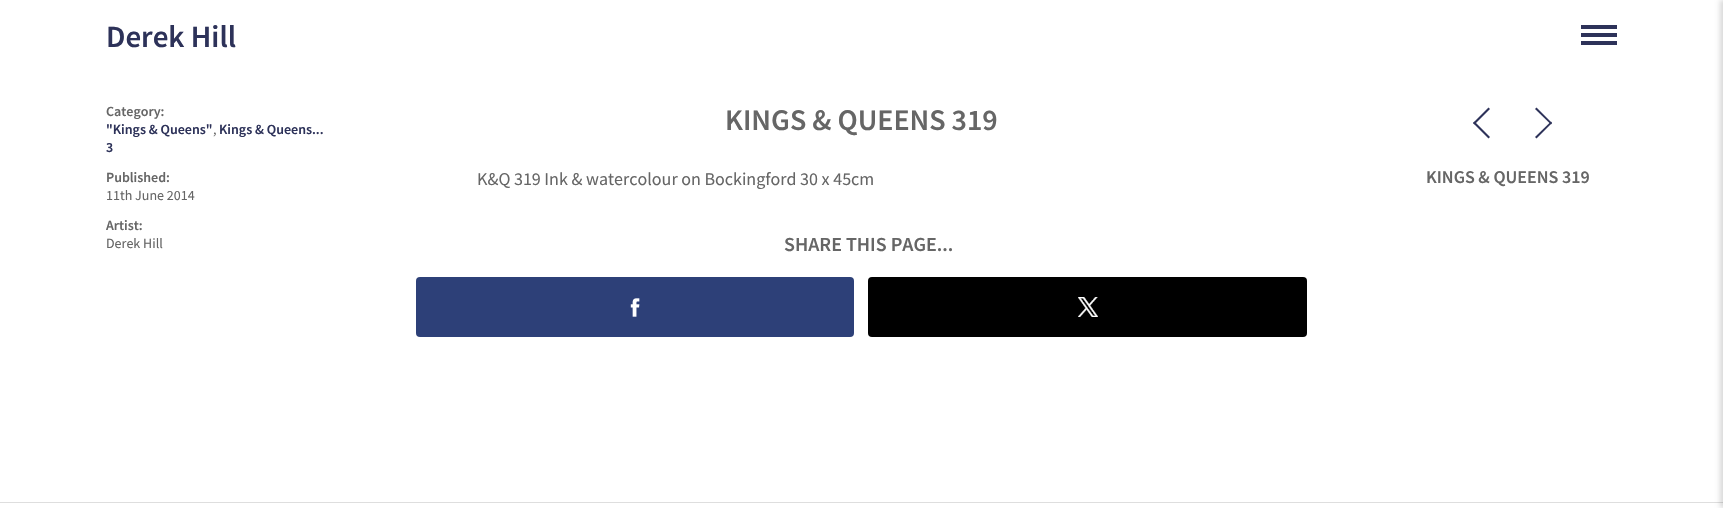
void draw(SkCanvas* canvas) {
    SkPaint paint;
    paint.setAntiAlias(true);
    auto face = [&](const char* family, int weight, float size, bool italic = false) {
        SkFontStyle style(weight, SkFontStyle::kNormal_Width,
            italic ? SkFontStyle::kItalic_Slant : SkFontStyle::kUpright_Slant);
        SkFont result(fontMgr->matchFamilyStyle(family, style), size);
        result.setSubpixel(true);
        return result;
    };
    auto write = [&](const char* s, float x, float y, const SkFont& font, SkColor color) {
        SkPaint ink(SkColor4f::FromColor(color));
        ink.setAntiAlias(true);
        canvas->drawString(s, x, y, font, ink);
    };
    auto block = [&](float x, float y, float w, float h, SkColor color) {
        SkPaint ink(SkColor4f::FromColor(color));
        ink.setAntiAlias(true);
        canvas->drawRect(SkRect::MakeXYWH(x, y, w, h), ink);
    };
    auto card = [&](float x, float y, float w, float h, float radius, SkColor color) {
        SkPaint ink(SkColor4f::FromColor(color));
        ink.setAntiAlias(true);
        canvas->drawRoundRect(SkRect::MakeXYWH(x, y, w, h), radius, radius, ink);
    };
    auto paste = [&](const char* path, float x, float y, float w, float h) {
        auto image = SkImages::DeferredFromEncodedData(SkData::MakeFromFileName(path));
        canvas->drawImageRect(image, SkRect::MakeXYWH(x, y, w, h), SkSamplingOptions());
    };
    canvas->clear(SK_ColorWHITE);
    auto kFont1 = face("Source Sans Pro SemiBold", 600, 31);
    write("Derek Hill", 106, 47, kFont1, SkColorSetRGB(45, 50, 89));
    block(1581, 25, 36, 4, SkColorSetRGB(45, 50, 89));
    block(1581, 33, 36, 4, SkColorSetRGB(45, 50, 89));
    block(1581, 41, 36, 4, SkColorSetRGB(45, 50, 89));
    auto kFont2 = face("Source Sans Pro SemiBold", 600, 14);
    write("Category:", 106, 116, kFont2, SkColorSetRGB(102, 102, 102));
    write("\"Kings & Queens\"", 106, 134, kFont2, SkColorSetRGB(45, 50, 89));
    auto kFont3 = face("Source Sans Pro", 400, 14);
    write(",", 213, 134, kFont3, SkColorSetRGB(102, 102, 102));
    write("Kings & Queens...", 219, 134, kFont2, SkColorSetRGB(45, 50, 89));
    write("3", 106, 152, kFont2, SkColorSetRGB(45, 50, 89));
    write("Published:", 106, 182, kFont2, SkColorSetRGB(102, 102, 102));
    write("11th June 2014", 106, 200, kFont3, SkColorSetRGB(102, 102, 102));
    write("Artist:", 106, 230, kFont2, SkColorSetRGB(102, 102, 102));
    write("Derek Hill", 106, 248, kFont3, SkColorSetRGB(102, 102, 102));
    auto kFont4 = face("Source Sans Pro SemiBold", 600, 30);
    write("KINGS & QUEENS 319", 725, 130, kFont4, SkColorSetRGB(102, 102, 102));
    auto kFont5 = face("Source Sans Pro", 400, 18);
    write("K&Q 319 Ink & watercolour on Bockingford 30 x 45cm", 477, 185, kFont5, SkColorSetRGB(102, 102, 102));
    paint.setColor(SkColorSetRGB(45, 50, 89));
    canvas->drawPath(SkPathBuilder().moveTo(1490, 137).lineTo(1488.5f, 138.5f).lineTo(1473, 123).lineTo(1474.5f, 121.5f).close().detach(), paint);
    canvas->drawPath(SkPathBuilder().moveTo(1490, 109).lineTo(1474.5f, 124.5f).lineTo(1473, 123).lineTo(1488.5f, 107.5f).close().detach(), paint);
    canvas->drawPath(SkPathBuilder().moveTo(1535, 109).lineTo(1536.5f, 107.5f).lineTo(1552, 123).lineTo(1551, 124.5f).close().detach(), paint);
    canvas->drawPath(SkPathBuilder().moveTo(1535, 137).lineTo(1551, 121.5f).lineTo(1552, 123).lineTo(1536.5f, 138.5f).close().detach(), paint);
    auto kFont6 = face("Source Sans Pro SemiBold", 600, 18);
    write("KINGS & QUEENS 319", 1426, 183, kFont6, SkColorSetRGB(102, 102, 102));
    auto kFont7 = face("Source Sans Pro SemiBold", 600, 20);
    write("SHARE THIS PAGE...", 784, 251, kFont7, SkColorSetRGB(102, 102, 102));
    card(416, 277, 438, 60, 4, SkColorSetRGB(45, 64, 120));
    paste("pic1.png", 630, 298, 10, 19);
    card(868, 277, 439, 60, 4, SK_ColorBLACK);
    paste("pic2.png", 1078, 297, 20, 20);
    block(0, 502, 1723, 1, SkColorSetRGB(222, 222, 222));
    paint.setColor(SkColorSetARGB(38, 0, 0, 0));
    paint.setMaskFilter(SkMaskFilter::MakeBlur(kNormal_SkBlurStyle, 2.5f));
    canvas->drawRect(SkRect::MakeXYWH(1720, 0, 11, 508), paint);
    paint.setMaskFilter(nullptr);
}
